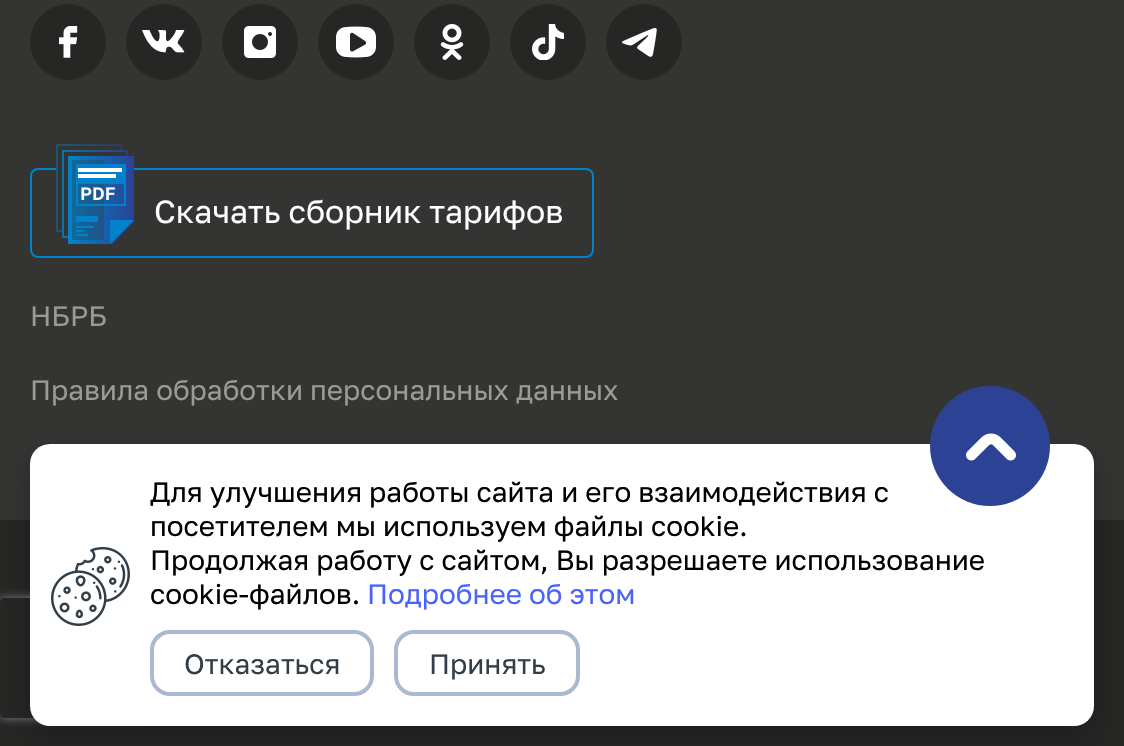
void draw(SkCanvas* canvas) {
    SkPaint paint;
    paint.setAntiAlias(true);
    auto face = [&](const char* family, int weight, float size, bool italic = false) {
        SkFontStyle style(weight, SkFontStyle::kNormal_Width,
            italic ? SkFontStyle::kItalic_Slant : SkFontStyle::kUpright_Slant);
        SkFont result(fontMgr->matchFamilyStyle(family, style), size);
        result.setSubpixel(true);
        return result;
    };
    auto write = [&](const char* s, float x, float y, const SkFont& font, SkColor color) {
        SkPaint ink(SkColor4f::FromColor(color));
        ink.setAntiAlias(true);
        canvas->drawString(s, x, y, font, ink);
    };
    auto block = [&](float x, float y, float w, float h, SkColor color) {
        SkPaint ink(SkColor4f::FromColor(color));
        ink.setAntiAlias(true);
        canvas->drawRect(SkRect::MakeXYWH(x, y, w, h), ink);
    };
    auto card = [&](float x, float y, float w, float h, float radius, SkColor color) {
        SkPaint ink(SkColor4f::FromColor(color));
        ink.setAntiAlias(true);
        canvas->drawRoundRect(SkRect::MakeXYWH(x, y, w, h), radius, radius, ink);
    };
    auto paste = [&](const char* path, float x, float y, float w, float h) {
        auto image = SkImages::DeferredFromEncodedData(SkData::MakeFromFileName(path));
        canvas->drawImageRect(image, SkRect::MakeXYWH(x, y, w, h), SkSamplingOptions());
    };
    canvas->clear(SkColorSetRGB(52, 53, 50));
    paint.setColor(SkColorSetRGB(38, 39, 37));
    canvas->drawCircle(68, 42, 38, paint);
    paste("pic1.png", 59, 26, 19, 32);
    canvas->drawCircle(164, 42, 38, paint);
    paste("pic2.png", 142, 30, 43, 23);
    canvas->drawCircle(260, 42, 38, paint);
    paste("pic3.png", 244, 26, 32, 32);
    canvas->drawCircle(356, 42, 38, paint);
    paste("pic4.png", 336, 26, 40, 32);
    canvas->drawCircle(452, 42, 38, paint);
    paste("pic5.png", 440, 24, 24, 36);
    canvas->drawCircle(548, 42, 38, paint);
    paste("pic6.png", 532, 24, 32, 36);
    canvas->drawCircle(644, 42, 38, paint);
    paste("pic7.png", 622, 28, 35, 29);
    paint.setStyle(SkPaint::kStroke_Style);
    paint.setStrokeWidth(2);
    paint.setColor(SkColorSetRGB(0, 131, 202));
    canvas->drawRoundRect(SkRect::MakeXYWH(31, 169, 562, 88), 7, 7, paint);
    paste("pic8.png", 56, 144, 78, 100);
    auto kFont1 = face("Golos", 400, 32);
    write("Скачать сборник тарифов", 154, 223, kFont1, SK_ColorWHITE);
    auto kFont2 = face("Golos", 400, 28);
    write("НБРБ", 30, 326, kFont2, SkColorSetRGB(154, 154, 153));
    write("Правила обработки персональных данных", 30, 400, kFont2, SkColorSetRGB(154, 154, 153));
    block(0, 520, 1124, 226, SkColorSetRGB(38, 39, 37));
    paint.setStyle(SkPaint::kFill_Style);
    paint.setColor(SkColorSetARGB(64, 0, 0, 0));
    paint.setMaskFilter(SkMaskFilter::MakeBlur(kNormal_SkBlurStyle, 15));
    canvas->drawRoundRect(SkRect::MakeXYWH(30, 454, 1064, 282), 20, 20, paint);
    paint.setMaskFilter(nullptr);
    canvas->save();
    canvas->clipPath(SkPathBuilder(SkPathFillType::kEvenOdd).moveTo(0, 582).lineTo(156, 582).lineTo(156, 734).lineTo(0, 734).close().moveTo(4, 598).lineTo(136, 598).cubicTo(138, 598, 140, 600, 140, 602).lineTo(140, 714).cubicTo(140, 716, 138, 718, 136, 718).lineTo(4, 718).cubicTo(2, 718, 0, 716, 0, 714).lineTo(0, 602).cubicTo(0, 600, 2, 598, 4, 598).close().detach(), true);
    paint.setColor(SkColorSetRGB(128, 128, 128));
    paint.setMaskFilter(SkMaskFilter::MakeBlur(kNormal_SkBlurStyle, 5));
    canvas->drawRoundRect(SkRect::MakeXYWH(0, 598, 140, 120), 4, 4, paint);
    paint.setMaskFilter(nullptr);
    canvas->restore();
    card(30, 444, 1064, 282, 20, SK_ColorWHITE);
    paint.setColor(SkColorSetRGB(44, 66, 149));
    canvas->drawCircle(990, 446, 60, paint);
    paste("pic9.png", 966, 433, 50, 28);
    paste("pic10.png", 51, 547, 79, 79);
    write("Для улучшения работы сайта и его взаимодействия с", 150, 502, kFont2, SK_ColorBLACK);
    write("посетителем мы используем файлы cookie.", 150, 536, kFont2, SK_ColorBLACK);
    write("Продолжая работу с сайтом, Вы разрешаете использование", 150, 570, kFont2, SK_ColorBLACK);
    write("cookie-файлов.", 150, 604, kFont2, SK_ColorBLACK);
    write("Подробнее об этом", 367, 604, kFont2, SkColorSetRGB(74, 100, 250));
    paint.setStyle(SkPaint::kStroke_Style);
    paint.setStrokeWidth(4);
    paint.setColor(SkColorSetRGB(169, 185, 208));
    canvas->drawRoundRect(SkRect::MakeXYWH(152, 632, 220, 62), 18, 18, paint);
    write("Отказаться", 184, 674, kFont2, SkColorSetRGB(50, 62, 72));
    canvas->drawRoundRect(SkRect::MakeXYWH(396, 632, 182, 62), 18, 18, paint);
    write("Принять", 429, 674, kFont2, SkColorSetRGB(50, 62, 72));
}
